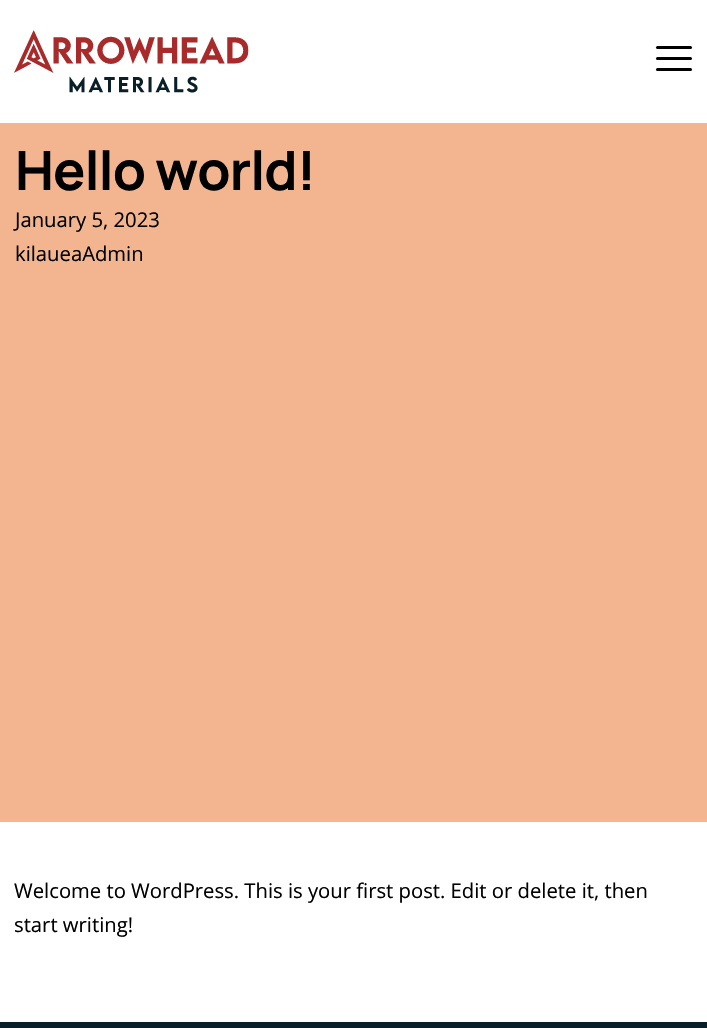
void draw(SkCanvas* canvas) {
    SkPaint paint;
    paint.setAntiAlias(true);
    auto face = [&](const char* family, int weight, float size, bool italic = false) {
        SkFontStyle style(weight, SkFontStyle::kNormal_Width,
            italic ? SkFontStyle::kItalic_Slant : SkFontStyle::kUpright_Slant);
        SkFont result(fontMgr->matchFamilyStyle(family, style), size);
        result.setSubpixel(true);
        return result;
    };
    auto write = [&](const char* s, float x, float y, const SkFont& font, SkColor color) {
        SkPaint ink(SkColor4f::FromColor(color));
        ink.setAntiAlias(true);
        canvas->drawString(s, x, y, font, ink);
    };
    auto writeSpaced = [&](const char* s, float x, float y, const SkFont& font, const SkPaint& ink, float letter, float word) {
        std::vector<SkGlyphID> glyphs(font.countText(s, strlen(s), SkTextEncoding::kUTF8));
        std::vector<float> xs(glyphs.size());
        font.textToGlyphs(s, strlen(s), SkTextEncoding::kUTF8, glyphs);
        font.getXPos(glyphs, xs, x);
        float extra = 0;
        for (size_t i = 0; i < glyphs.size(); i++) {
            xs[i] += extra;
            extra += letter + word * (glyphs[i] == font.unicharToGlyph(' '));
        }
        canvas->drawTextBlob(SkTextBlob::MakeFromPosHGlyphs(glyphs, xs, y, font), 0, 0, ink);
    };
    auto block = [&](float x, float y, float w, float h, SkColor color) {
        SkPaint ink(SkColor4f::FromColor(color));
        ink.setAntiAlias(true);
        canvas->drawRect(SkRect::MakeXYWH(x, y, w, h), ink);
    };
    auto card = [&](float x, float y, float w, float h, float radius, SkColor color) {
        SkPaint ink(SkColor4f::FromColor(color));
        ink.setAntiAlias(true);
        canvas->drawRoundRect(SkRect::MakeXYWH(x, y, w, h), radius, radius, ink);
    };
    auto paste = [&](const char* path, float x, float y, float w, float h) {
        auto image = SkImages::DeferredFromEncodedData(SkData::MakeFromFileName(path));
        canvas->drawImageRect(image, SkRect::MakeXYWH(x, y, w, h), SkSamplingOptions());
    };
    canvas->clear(SK_ColorWHITE);
    paste("pic1.png", 14, 30, 235, 63);
    card(656, 57, 36, 3, 1.5f, SK_ColorBLACK);
    card(656, 46, 36, 3, 1.5f, SK_ColorBLACK);
    card(656, 68, 36, 3, 1.5f, SK_ColorBLACK);
    block(0, 123, 707, 699, SkColorSetRGB(242, 181, 144));
    auto kFont1 = face("Manrope", 700, 54);
    paint.setColor(SK_ColorBLACK);
    writeSpaced("Hello world!", 15, 190, kFont1, paint, -1, 0);
    auto kFont2 = face("Open Sans", 400, 20.25f);
    write("January 5, 2023", 15, 227, kFont2, SK_ColorBLACK);
    write("kilaueaAdmin", 15, 261, kFont2, SK_ColorBLACK);
    write("Welcome to WordPress. This is your first post. Edit or delete it, then", 14, 898, kFont2, SK_ColorBLACK);
    write("start writing!", 14, 932, kFont2, SK_ColorBLACK);
    block(0, 1022, 707, 6, SkColorSetRGB(9, 31, 41));
}
